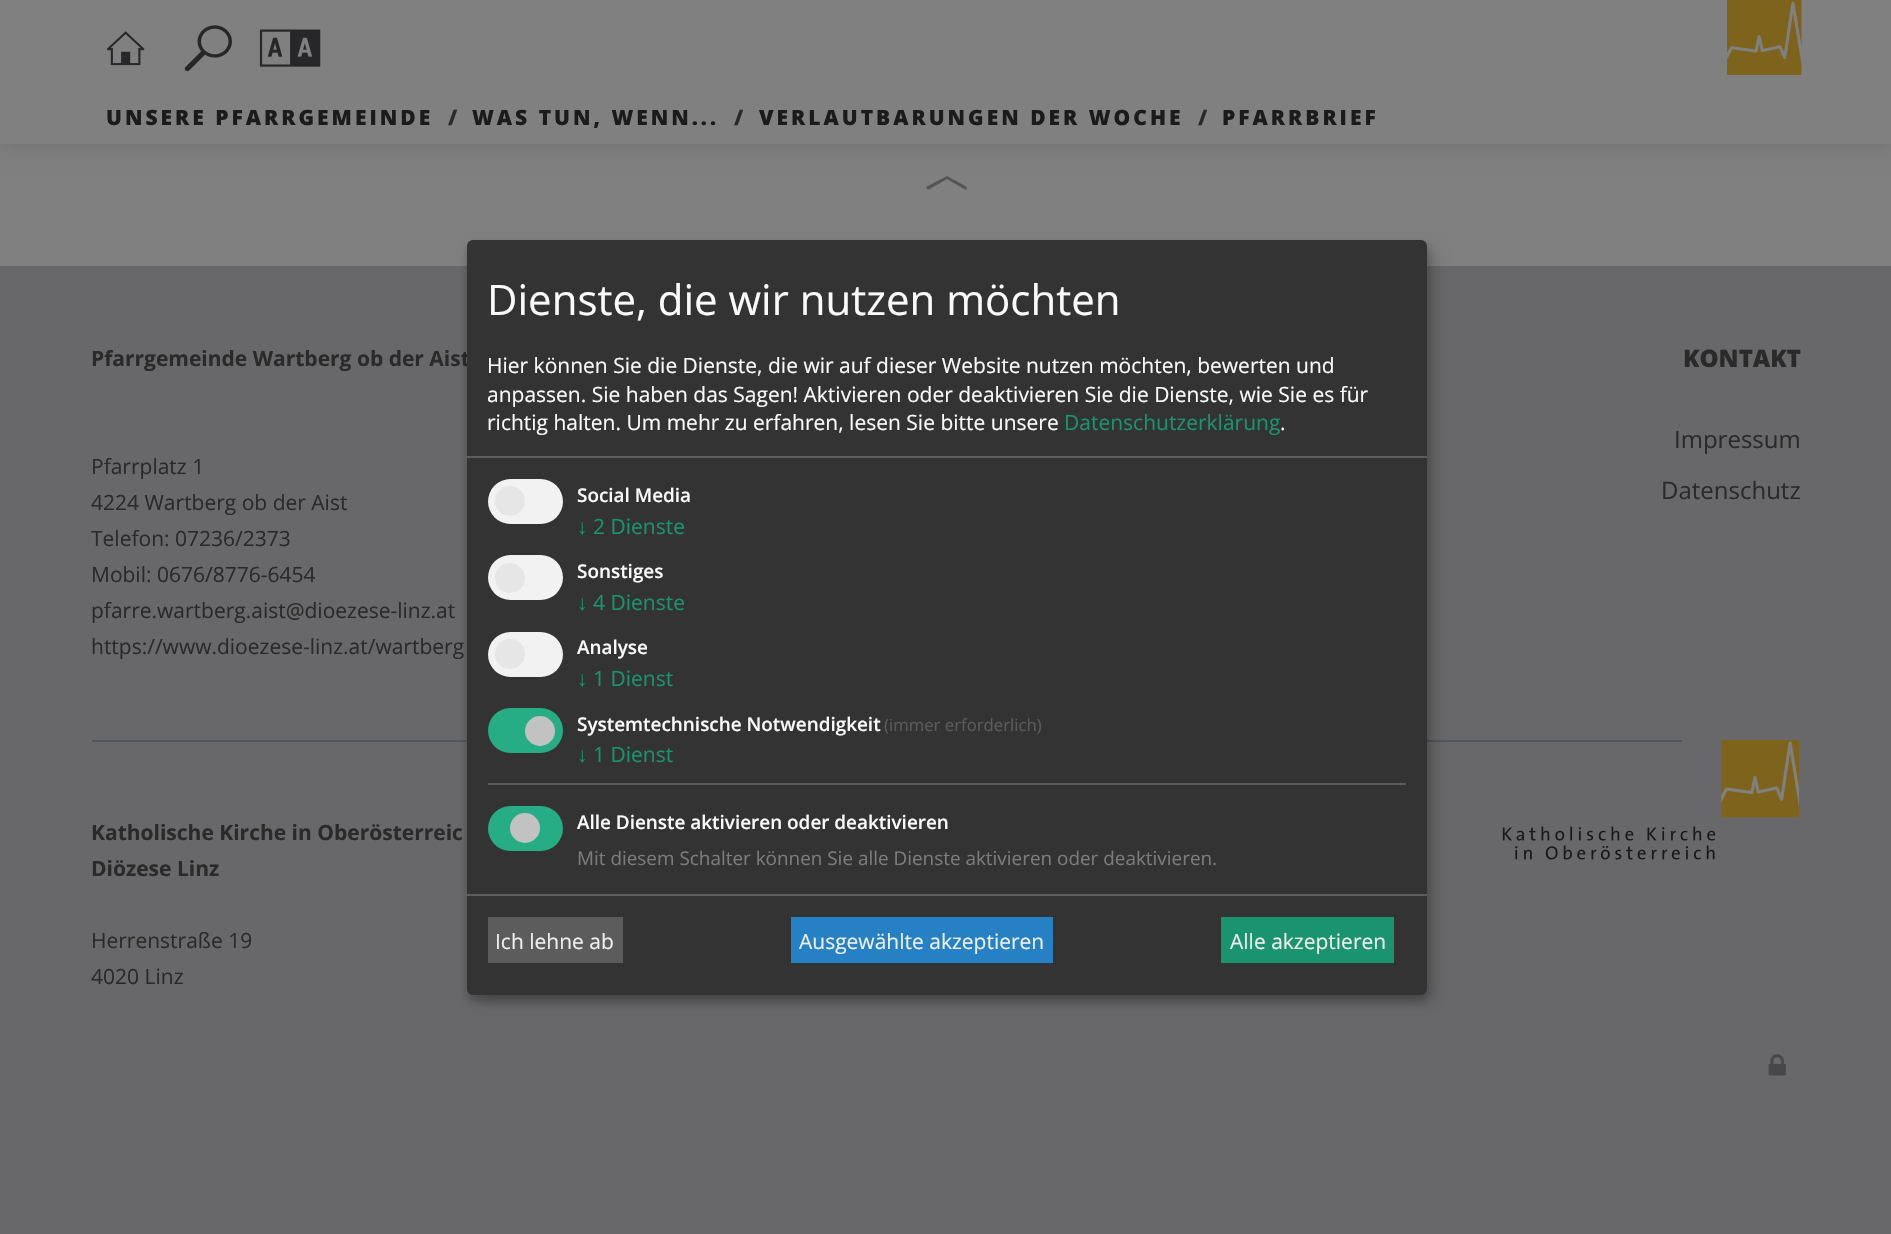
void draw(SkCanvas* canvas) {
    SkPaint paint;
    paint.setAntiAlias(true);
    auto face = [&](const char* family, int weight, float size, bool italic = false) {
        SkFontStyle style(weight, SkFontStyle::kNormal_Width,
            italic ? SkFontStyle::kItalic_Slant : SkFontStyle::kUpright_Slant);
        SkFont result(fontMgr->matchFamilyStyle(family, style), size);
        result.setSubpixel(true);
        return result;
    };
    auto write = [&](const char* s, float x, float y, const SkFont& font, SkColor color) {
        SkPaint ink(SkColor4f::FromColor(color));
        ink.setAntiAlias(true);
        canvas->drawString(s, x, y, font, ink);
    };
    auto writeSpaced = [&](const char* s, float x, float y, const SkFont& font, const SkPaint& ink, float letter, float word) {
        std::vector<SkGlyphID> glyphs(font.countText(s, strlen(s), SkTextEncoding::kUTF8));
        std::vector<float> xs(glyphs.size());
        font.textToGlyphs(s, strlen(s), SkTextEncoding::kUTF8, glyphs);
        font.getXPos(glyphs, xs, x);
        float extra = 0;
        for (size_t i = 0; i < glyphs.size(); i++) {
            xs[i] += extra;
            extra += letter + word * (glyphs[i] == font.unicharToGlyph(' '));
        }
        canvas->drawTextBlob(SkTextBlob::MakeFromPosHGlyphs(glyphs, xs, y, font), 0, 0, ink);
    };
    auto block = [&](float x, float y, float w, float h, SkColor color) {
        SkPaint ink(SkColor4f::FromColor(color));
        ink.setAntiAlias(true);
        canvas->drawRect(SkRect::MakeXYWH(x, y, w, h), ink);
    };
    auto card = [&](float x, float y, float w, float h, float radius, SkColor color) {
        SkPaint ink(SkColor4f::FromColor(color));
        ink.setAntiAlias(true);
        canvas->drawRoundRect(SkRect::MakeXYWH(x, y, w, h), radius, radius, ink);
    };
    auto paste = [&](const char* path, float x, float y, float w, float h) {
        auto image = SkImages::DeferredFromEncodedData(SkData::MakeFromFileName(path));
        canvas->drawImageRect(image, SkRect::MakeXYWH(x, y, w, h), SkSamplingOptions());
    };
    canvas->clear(SkColorSetRGB(128, 128, 128));
    paint.setColor(SkColorSetARGB(38, 0, 0, 0));
    paint.setMaskFilter(SkMaskFilter::MakeBlur(kNormal_SkBlurStyle, 10));
    canvas->drawRect(SkRect::MakeXYWH(0, 0, 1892, 144), paint);
    paint.setMaskFilter(nullptr);
    block(0, 0, 1891, 144, SkColorSetRGB(128, 128, 128));
    paste("pic1.png", 106, 31, 39, 35);
    paste("pic2.png", 184, 25, 48, 47);
    paste("pic3.png", 259, 29, 62, 38);
    paste("pic4.png", 1727, 0, 75, 75);
    auto kFont1 = face("Open Sans", 800, 21);
    paint.setColor(SkColorSetRGB(27, 27, 28));
    writeSpaced("UNSERE PFARRGEMEINDE", 106, 125, kFont1, paint, 3, 0);
    write("/", 448, 125, kFont1, SkColorSetRGB(42, 42, 42));
    writeSpaced("WAS TUN, WENN...", 472, 125, kFont1, paint, 3, 0);
    write("/", 734, 125, kFont1, SkColorSetRGB(42, 42, 42));
    writeSpaced("VERLAUTBARUNGEN DER WOCHE", 759, 125, kFont1, paint, 3, 0);
    write("/", 1198, 125, kFont1, SkColorSetRGB(42, 42, 42));
    writeSpaced("PFARRBRIEF", 1222, 125, kFont1, paint, 3, 0);
    paint.setColor(SkColorSetRGB(84, 84, 85));
    canvas->drawPath(SkPathBuilder().moveTo(966, 190).lineTo(947, 179).lineTo(928, 190).lineTo(926, 187).lineTo(947, 176).lineTo(967, 187).close().detach(), paint);
    block(0, 266, 1891, 968, SkColorSetRGB(104, 104, 106));
    auto kFont2 = face("Open Sans", 700, 21);
    write("Pfarrgemeinde Wartberg ob der Aist", 91, 366, kFont2, SkColorSetRGB(42, 42, 42));
    auto kFont3 = face("Open Sans", 400, 21);
    write("Pfarrplatz 1", 91, 474, kFont3, SkColorSetRGB(42, 42, 42));
    write("4224 Wartberg ob der Aist", 91, 510, kFont3, SkColorSetRGB(42, 42, 42));
    write("Telefon: 07236/2373", 91, 546, kFont3, SkColorSetRGB(42, 42, 42));
    write("Mobil: 0676/8776-6454", 91, 582, kFont3, SkColorSetRGB(42, 42, 42));
    write("pfarre.wartberg.aist@dioezese-linz.at", 91, 618, kFont3, SkColorSetRGB(42, 42, 42));
    write("https://www.dioezese-linz.at/wartberg", 91, 654, kFont3, SkColorSetRGB(42, 42, 42));
    auto kFont4 = face("Open Sans", 800, 24);
    write("KONTAKT", 1683, 367, kFont4, SkColorSetRGB(42, 42, 42));
    auto kFont5 = face("Open Sans", 400, 24);
    write("Impressum", 1674, 448, kFont5, SkColorSetRGB(42, 42, 42));
    write("Datenschutz", 1661, 499, kFont5, SkColorSetRGB(42, 42, 42));
    paste("pic5.png", 1502, 740, 297, 120);
    block(92, 740, 1590, 2, SkColorSetRGB(82, 85, 89));
    write("Katholische Kirche in Oberösterreic", 91, 840, kFont2, SkColorSetRGB(42, 42, 42));
    write("Diözese Linz", 91, 876, kFont2, SkColorSetRGB(42, 42, 42));
    write("Herrenstraße 19", 91, 948, kFont3, SkColorSetRGB(42, 42, 42));
    write("4020 Linz", 91, 984, kFont3, SkColorSetRGB(42, 42, 42));
    paste("pic6.png", 1768, 1054, 18, 22);
    paint.setColor(SkColorSetARGB(48, 0, 0, 0));
    paint.setMaskFilter(SkMaskFilter::MakeBlur(kNormal_SkBlurStyle, 7.5f));
    canvas->drawRoundRect(SkRect::MakeXYWH(474, 248, 960, 754), 6, 6, paint);
    paint.setMaskFilter(nullptr);
    paint.setColor(SkColorSetARGB(51, 0, 0, 0));
    paint.setMaskFilter(SkMaskFilter::MakeBlur(kNormal_SkBlurStyle, 4.5f));
    canvas->drawRoundRect(SkRect::MakeXYWH(467, 246, 960, 755), 6, 6, paint);
    paint.setMaskFilter(nullptr);
    card(467, 240, 960, 755, 6, SkColorSetRGB(51, 51, 51));
    block(467, 456, 960, 2, SkColorSetRGB(92, 92, 92));
    auto kFont6 = face("Open Sans", 400, 42);
    write("Dienste, die wir nutzen möchten", 487, 315, kFont6, SkColorSetRGB(250, 250, 250));
    write("Hier können Sie die Dienste, die wir auf dieser Website nutzen möchten, bewerten und", 487, 373, kFont3, SkColorSetRGB(250, 250, 250));
    write("anpassen. Sie haben das Sagen! Aktivieren oder deaktivieren Sie die Dienste, wie Sie es für", 487, 402, kFont3, SkColorSetRGB(250, 250, 250));
    write("richtig halten. Um mehr zu erfahren, lesen Sie bitte unsere", 487, 430, kFont3, SkColorSetRGB(250, 250, 250));
    write("Datenschutzerklärung", 1064, 430, kFont3, SkColorSetRGB(26, 147, 111));
    write(".", 1280, 430, kFont3, SkColorSetRGB(250, 250, 250));
    card(488, 479, 75, 45, 22.5f, SkColorSetRGB(242, 242, 242));
    paint.setColor(SkColorSetRGB(230, 230, 230));
    canvas->drawCircle(510, 501, 15, paint);
    auto kFont7 = face("Open Sans", 600, 18.9f);
    write("Social Media", 577, 502, kFont7, SkColorSetRGB(250, 250, 250));
    auto kFont8 = face("Liberation Sans", 400, 21);
    write("↓", 577, 534, kFont8, SkColorSetRGB(26, 147, 111));
    write("2 Dienste", 593, 534, kFont3, SkColorSetRGB(26, 147, 111));
    card(488, 555, 75, 45, 22.5f, SkColorSetRGB(242, 242, 242));
    canvas->drawCircle(510, 578, 15, paint);
    write("Sonstiges", 577, 578, kFont7, SkColorSetRGB(250, 250, 250));
    write("↓", 577, 610, kFont8, SkColorSetRGB(26, 147, 111));
    write("4 Dienste", 593, 610, kFont3, SkColorSetRGB(26, 147, 111));
    card(488, 632, 75, 45, 22.5f, SkColorSetRGB(242, 242, 242));
    canvas->drawCircle(510, 654, 15, paint);
    write("Analyse", 577, 654, kFont7, SkColorSetRGB(250, 250, 250));
    write("↓", 577, 686, kFont8, SkColorSetRGB(26, 147, 111));
    write("1 Dienst", 593, 686, kFont3, SkColorSetRGB(26, 147, 111));
    card(488, 708, 75, 45, 22.5f, SkColorSetRGB(39, 173, 133));
    paint.setColor(SkColorSetRGB(194, 194, 194));
    canvas->drawCircle(540, 731, 15, paint);
    write("Systemtechnische Notwendigkeit", 577, 731, kFont7, SkColorSetRGB(250, 250, 250));
    auto kFont9 = face("Open Sans", 400, 16.75f);
    write("(immer erforderlich)", 884, 731, kFont9, SkColorSetRGB(92, 92, 92));
    write("↓", 577, 762, kFont8, SkColorSetRGB(26, 147, 111));
    write("1 Dienst", 593, 762, kFont3, SkColorSetRGB(26, 147, 111));
    block(488, 783, 918, 2, SkColorSetRGB(92, 92, 92));
    card(488, 806, 75, 45, 22.5f, SkColorSetRGB(39, 173, 133));
    canvas->drawCircle(525, 828, 15, paint);
    write("Alle Dienste aktivieren oder deaktivieren", 577, 829, kFont7, SkColorSetRGB(250, 250, 250));
    auto kFont10 = face("Open Sans", 400, 18.9f);
    write("Mit diesem Schalter können Sie alle Dienste aktivieren oder deaktivieren.", 577, 865, kFont10, SkColorSetRGB(124, 124, 124));
    block(467, 894, 960, 2, SkColorSetRGB(92, 92, 92));
    block(488, 917, 135, 46, SkColorSetRGB(92, 92, 92));
    write("Ich lehne ab", 495, 949, kFont3, SkColorSetRGB(238, 238, 238));
    block(791, 917, 262, 46, SkColorSetRGB(37, 129, 196));
    write("Ausgewählte akzeptieren", 799, 949, kFont3, SkColorSetRGB(238, 238, 238));
    block(1221, 917, 173, 46, SkColorSetRGB(26, 147, 111));
    write("Alle akzeptieren", 1230, 949, kFont3, SkColorSetRGB(238, 238, 238));
}
